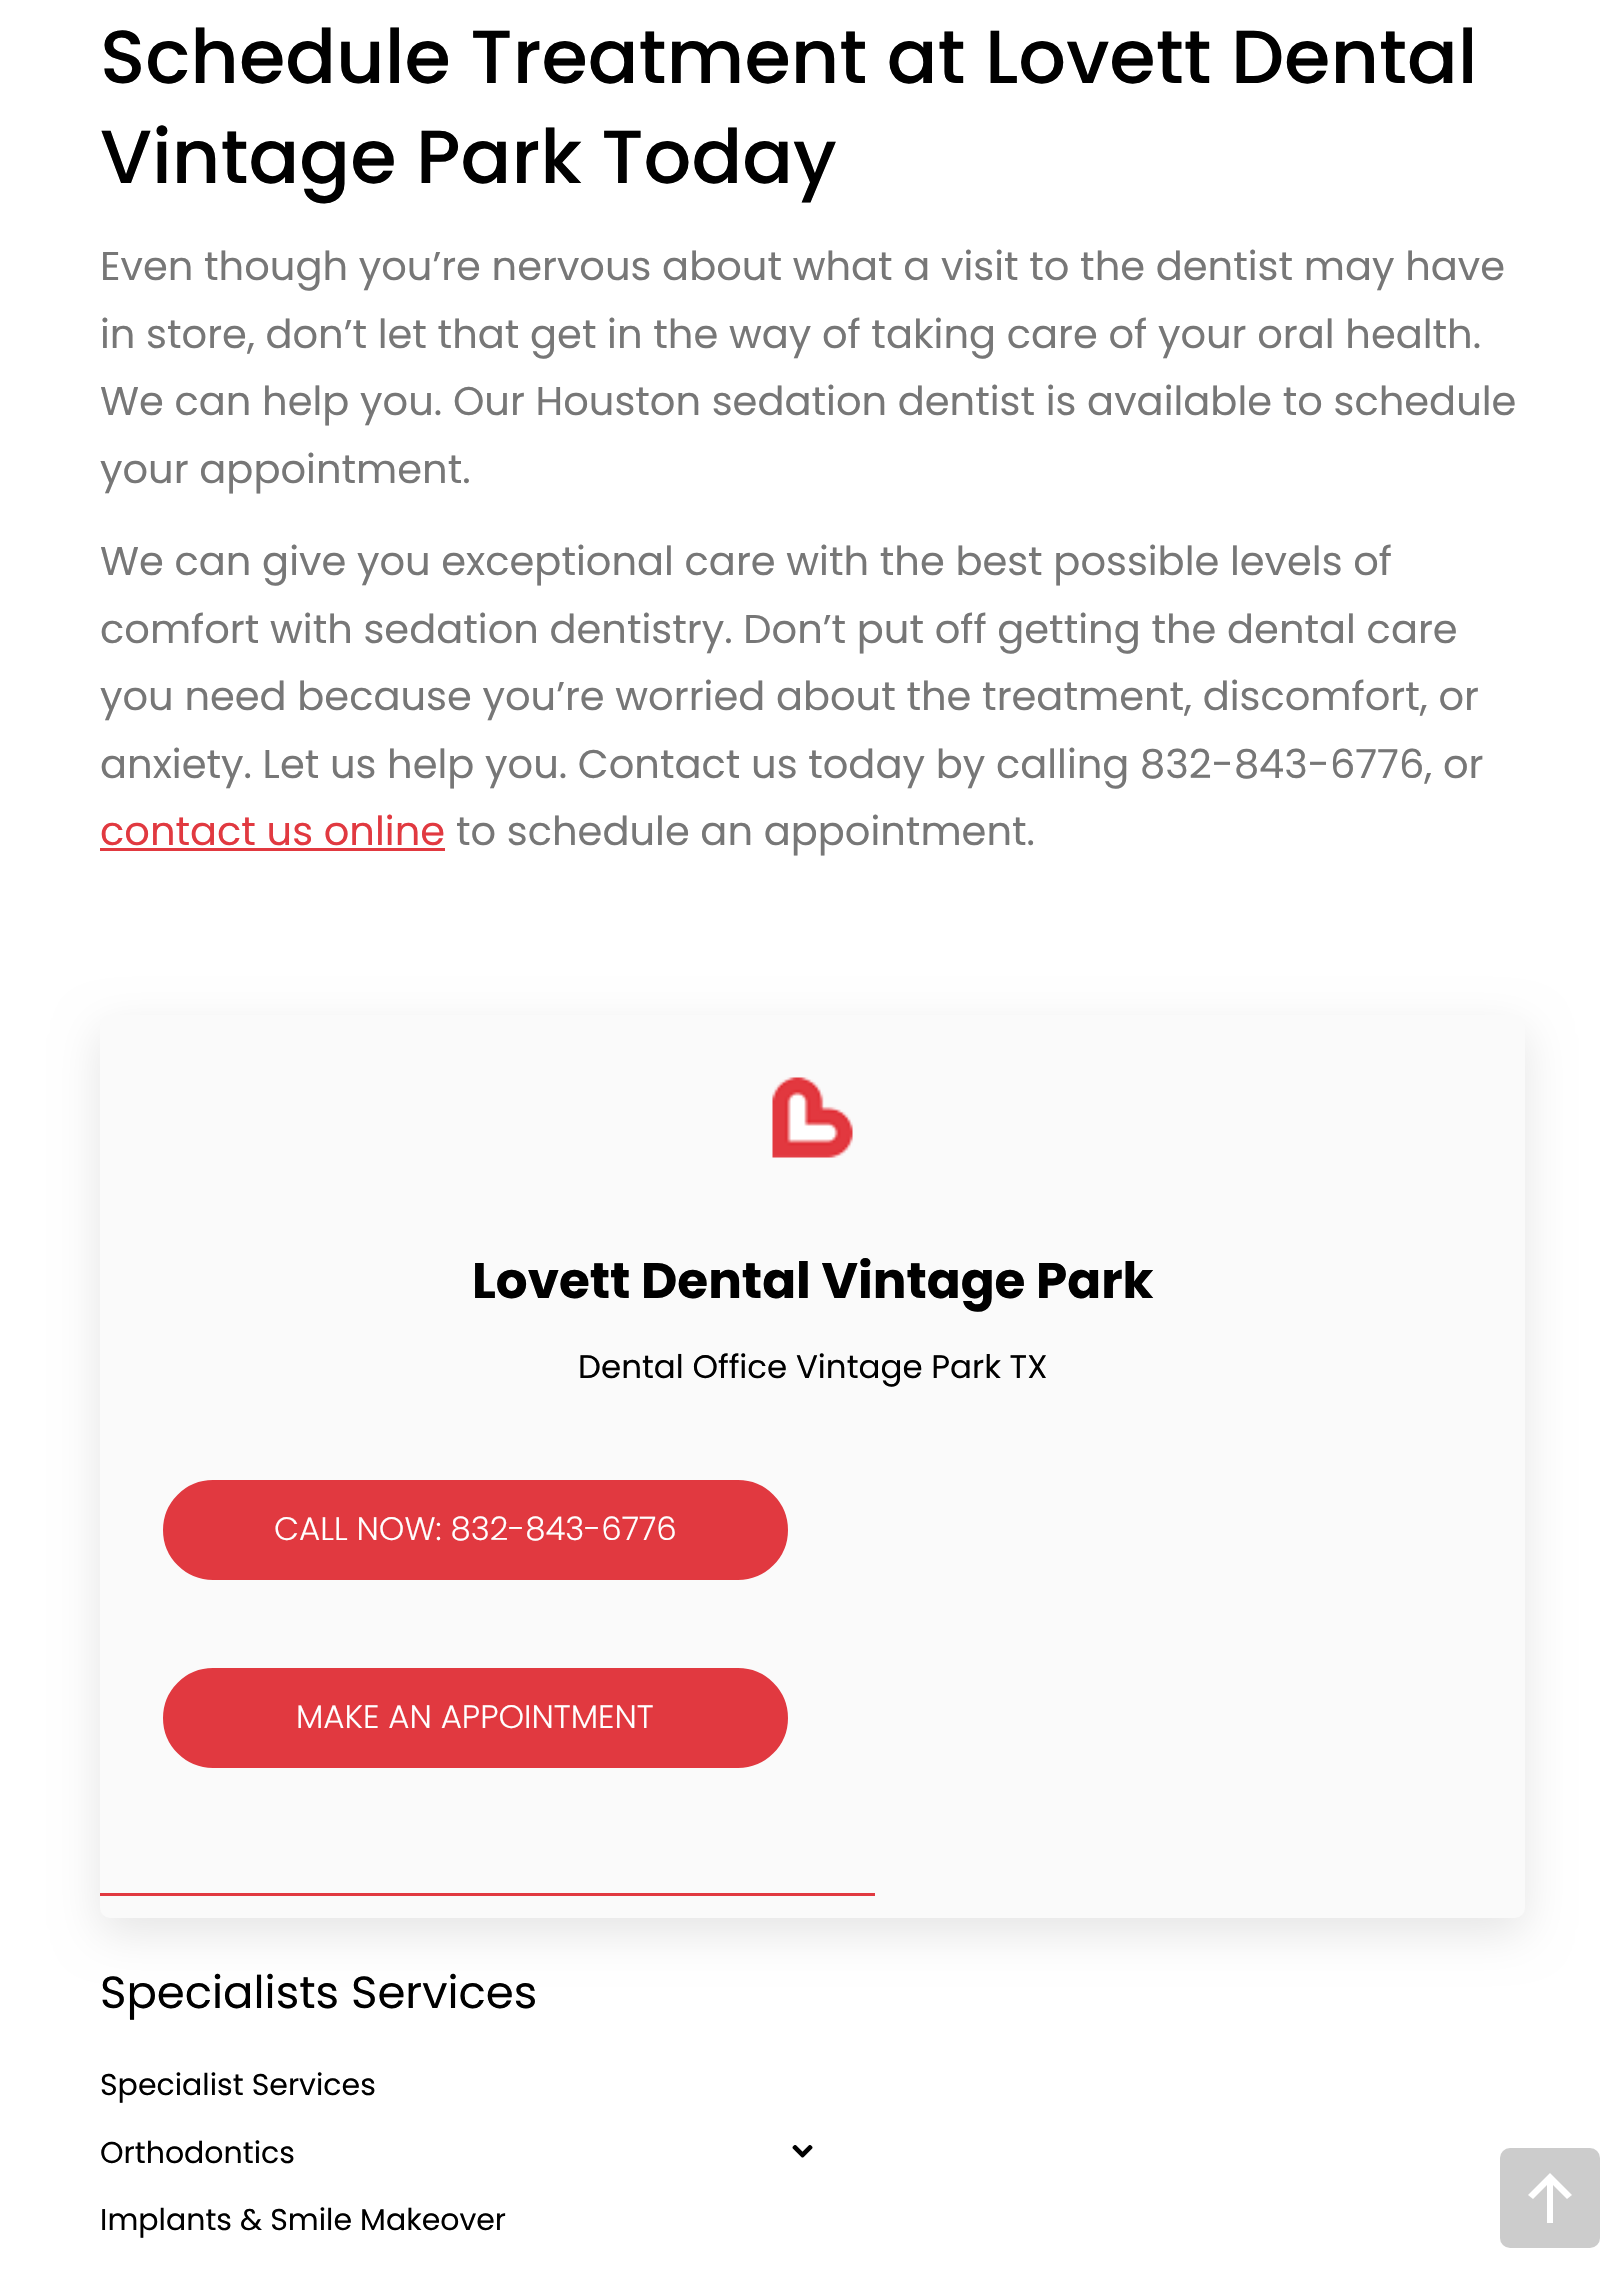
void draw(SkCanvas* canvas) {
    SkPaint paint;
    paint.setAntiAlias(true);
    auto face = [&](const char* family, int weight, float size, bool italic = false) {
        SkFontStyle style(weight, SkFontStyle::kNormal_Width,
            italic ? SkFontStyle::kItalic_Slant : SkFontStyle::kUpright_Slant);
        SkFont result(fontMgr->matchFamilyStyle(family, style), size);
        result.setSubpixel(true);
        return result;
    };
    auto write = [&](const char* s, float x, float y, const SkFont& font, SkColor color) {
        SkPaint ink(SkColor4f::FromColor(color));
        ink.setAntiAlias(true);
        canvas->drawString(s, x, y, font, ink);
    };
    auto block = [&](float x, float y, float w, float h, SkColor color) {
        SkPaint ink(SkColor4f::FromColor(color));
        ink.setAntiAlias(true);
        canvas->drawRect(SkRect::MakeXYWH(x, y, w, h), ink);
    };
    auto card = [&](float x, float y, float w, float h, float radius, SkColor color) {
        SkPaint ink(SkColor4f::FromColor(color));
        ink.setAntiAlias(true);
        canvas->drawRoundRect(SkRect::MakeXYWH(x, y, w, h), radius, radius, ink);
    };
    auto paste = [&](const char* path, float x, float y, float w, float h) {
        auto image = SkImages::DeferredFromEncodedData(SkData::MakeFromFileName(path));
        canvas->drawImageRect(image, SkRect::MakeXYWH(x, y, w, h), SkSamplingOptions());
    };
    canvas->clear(SK_ColorWHITE);
    auto kFont1 = face("Poppins", 500, 75);
    write("Schedule Treatment at Lovett Dental", 100, 83, kFont1, SK_ColorBLACK);
    write("Vintage Park Today", 100, 183, kFont1, SK_ColorBLACK);
    auto kFont2 = face("Poppins", 400, 40);
    write("Even though you’re nervous about what a visit to the dentist may have", 100, 280, kFont2, SkColorSetRGB(119, 119, 119));
    write("in store, don’t let that get in the way of taking care of your oral health.", 100, 348, kFont2, SkColorSetRGB(119, 119, 119));
    write("We can help you. Our Houston sedation dentist is available to schedule", 100, 415, kFont2, SkColorSetRGB(119, 119, 119));
    write("your appointment.", 100, 483, kFont2, SkColorSetRGB(119, 119, 119));
    write("We can give you exceptional care with the best possible levels of", 100, 575, kFont2, SkColorSetRGB(119, 119, 119));
    write("comfort with sedation dentistry. Don’t put off getting the dental care", 100, 643, kFont2, SkColorSetRGB(119, 119, 119));
    write("you need because you’re worried about the treatment, discomfort, or", 100, 710, kFont2, SkColorSetRGB(119, 119, 119));
    write("anxiety. Let us help you. Contact us today by calling 832-843-6776, or", 100, 778, kFont2, SkColorSetRGB(119, 119, 119));
    write("contact us online", 100, 845, kFont2, SkColorSetRGB(225, 57, 64));
    block(100, 848, 345, 3, SkColorSetRGB(225, 57, 64));
    write("to schedule an appointment.", 456, 845, kFont2, SkColorSetRGB(119, 119, 119));
    paint.setColor(SkColorSetARGB(26, 0, 0, 0));
    paint.setMaskFilter(SkMaskFilter::MakeBlur(kNormal_SkBlurStyle, 22.5f));
    canvas->drawRoundRect(SkRect::MakeXYWH(100, 1030, 1425, 903), 10, 10, paint);
    paint.setMaskFilter(nullptr);
    card(100, 1015, 1425, 903, 10, SkColorSetRGB(250, 250, 250));
    paste("pic1.png", 772, 1077, 81, 81);
    auto kFont3 = face("Poppins", 700, 50);
    write("Lovett Dental Vintage Park", 472, 1298, kFont3, SK_ColorBLACK);
    auto kFont4 = face("Poppins", 400, 32.5f);
    write("Dental Office Vintage Park TX", 578, 1378, kFont4, SK_ColorBLACK);
    paint.setColor(SkColorSetRGB(225, 57, 64));
    canvas->drawRoundRect(SkRect::MakeXYWH(164.5f, 1481.5f, 622, 97), 48.5f, 48.5f, paint);
    paint.setStyle(SkPaint::kStroke_Style);
    paint.setStrokeWidth(3);
    canvas->drawRoundRect(SkRect::MakeXYWH(164.5f, 1481.5f, 622, 97), 48.5f, 48.5f, paint);
    auto kFont5 = face("Poppins", 300, 32.5f);
    write("CALL NOW: 832-843-6776", 274, 1540, kFont5, SK_ColorWHITE);
    paint.setStyle(SkPaint::kFill_Style);
    canvas->drawRoundRect(SkRect::MakeXYWH(164.5f, 1669.5f, 622, 97), 48.5f, 48.5f, paint);
    paint.setStyle(SkPaint::kStroke_Style);
    canvas->drawRoundRect(SkRect::MakeXYWH(164.5f, 1669.5f, 622, 97), 48.5f, 48.5f, paint);
    write("MAKE AN APPOINTMENT", 296, 1728, kFont5, SK_ColorWHITE);
    block(100, 1893, 775, 3, SkColorSetRGB(225, 57, 64));
    auto kFont6 = face("Poppins", 400, 45);
    write("Specialists Services", 100, 2008, kFont6, SK_ColorBLACK);
    auto kFont7 = face("Poppins", 400, 30);
    write("Specialist Services", 100, 2095, kFont7, SK_ColorBLACK);
    write("Orthodontics", 100, 2163, kFont7, SK_ColorBLACK);
    paste("pic2.png", 792, 2145, 21, 13);
    write("Implants & Smile Makeover", 100, 2230, kFont7, SK_ColorBLACK);
    card(1500, 2148, 100, 100, 10, SkColorSetRGB(204, 204, 204));
    paint.setStyle(SkPaint::kFill_Style);
    paint.setColor(SK_ColorWHITE);
    canvas->drawPath(SkPathBuilder().moveTo(1528, 2195).lineTo(1533, 2199).lineTo(1547, 2185).lineTo(1547, 2223).lineTo(1553, 2223).lineTo(1553, 2185).lineTo(1567, 2199).lineTo(1572, 2195).lineTo(1550, 2173).close().detach(), paint);
}
